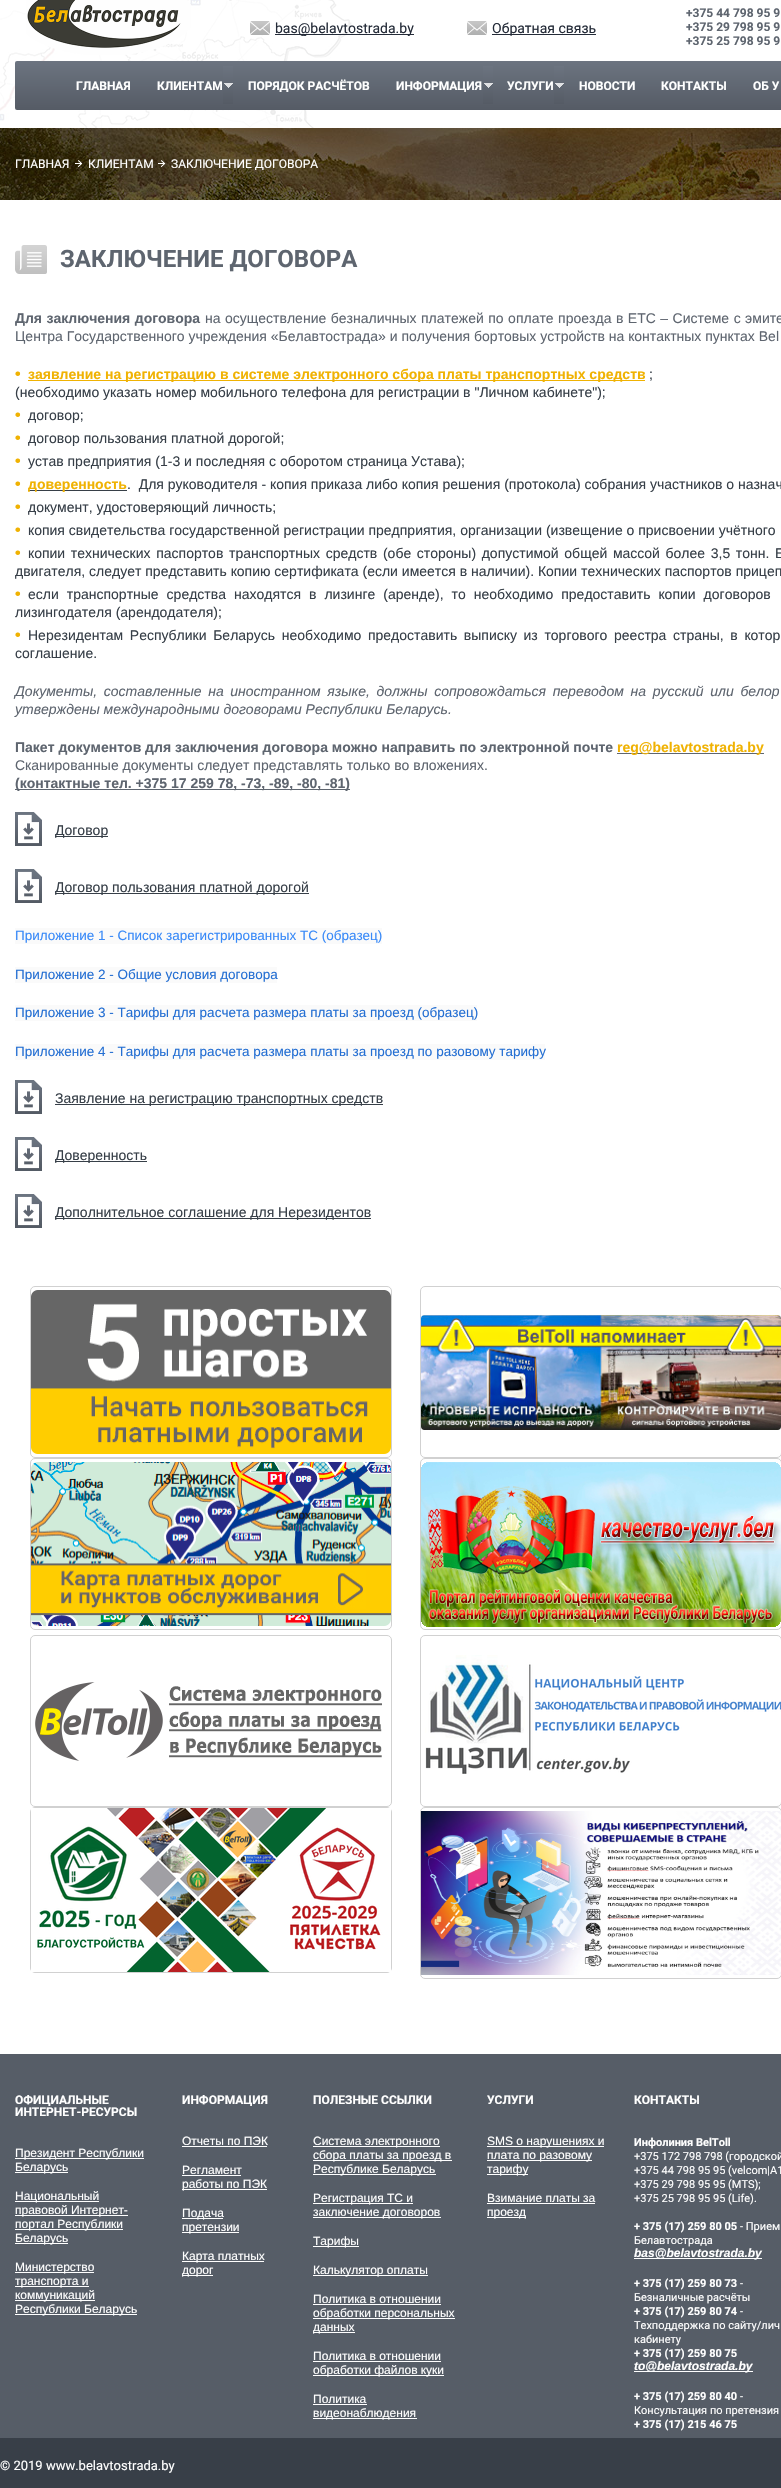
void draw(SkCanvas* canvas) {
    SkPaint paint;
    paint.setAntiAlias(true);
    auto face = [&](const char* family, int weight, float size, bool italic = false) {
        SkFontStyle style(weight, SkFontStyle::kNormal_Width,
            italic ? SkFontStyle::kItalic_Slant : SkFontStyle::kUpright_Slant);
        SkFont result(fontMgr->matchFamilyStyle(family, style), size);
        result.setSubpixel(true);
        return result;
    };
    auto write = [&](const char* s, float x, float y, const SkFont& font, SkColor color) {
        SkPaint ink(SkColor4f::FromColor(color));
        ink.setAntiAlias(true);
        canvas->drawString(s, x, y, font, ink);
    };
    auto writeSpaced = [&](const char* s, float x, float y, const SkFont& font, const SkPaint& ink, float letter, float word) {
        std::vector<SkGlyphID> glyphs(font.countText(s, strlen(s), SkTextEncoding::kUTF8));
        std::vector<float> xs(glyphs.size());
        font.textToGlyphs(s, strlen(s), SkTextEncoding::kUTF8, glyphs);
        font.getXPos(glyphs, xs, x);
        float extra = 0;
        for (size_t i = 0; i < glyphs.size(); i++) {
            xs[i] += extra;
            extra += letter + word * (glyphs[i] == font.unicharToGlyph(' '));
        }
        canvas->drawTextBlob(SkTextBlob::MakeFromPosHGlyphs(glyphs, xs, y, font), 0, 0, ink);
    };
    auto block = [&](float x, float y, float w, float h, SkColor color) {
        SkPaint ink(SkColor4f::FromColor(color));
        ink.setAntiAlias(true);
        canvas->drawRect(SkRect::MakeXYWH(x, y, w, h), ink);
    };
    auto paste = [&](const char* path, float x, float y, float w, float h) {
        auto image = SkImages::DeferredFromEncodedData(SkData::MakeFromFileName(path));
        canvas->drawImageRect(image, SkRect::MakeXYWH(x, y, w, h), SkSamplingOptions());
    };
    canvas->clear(SK_ColorWHITE);
    paste("pic1.png", 0, 0, 352, 128);
    paste("pic2.png", 26, 0, 165, 55);
    paste("pic3.png", 250, 21, 20, 14);
    block(275, 34, 139, 1, SkColorSetRGB(36, 43, 56));
    auto kFont1 = face("Roboto", 400, 14);
    write("bas@belavtostrada.by", 275, 33, kFont1, SkColorSetRGB(36, 43, 56));
    paste("pic4.png", 467, 21, 20, 14);
    block(492, 34, 104, 1, SkColorSetRGB(36, 43, 56));
    write("Обратная связь", 492, 33, kFont1, SkColorSetRGB(36, 43, 56));
    auto kFont2 = face("Roboto", 700, 12);
    write("+375 44 798 95 9", 686, 17, kFont2, SkColorSetRGB(94, 101, 111));
    write("+375 29 798 95 9", 686, 31, kFont2, SkColorSetRGB(94, 101, 111));
    write("+375 25 798 95 9", 686, 45, kFont2, SkColorSetRGB(94, 101, 111));
    {
        const SkColor colors[] = {SkColorSetRGB(108, 116, 128), SkColorSetRGB(85, 91, 101)};
        const float stops[] = {0, 1};
        const SkPoint ends[] = {{600, 61}, {600, 110}};
        paint.setShader(SkGradientShader::MakeLinear(ends, colors, stops, 2, SkTileMode::kClamp));
        paint.setAlpha(255);
    }
    canvas->drawRoundRect(SkRect::MakeXYWH(15, 61, 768, 49), 2, 2, paint);
    write("ГЛАВНАЯ", 76, 90, kFont2, SK_ColorWHITE);
    {
        const SkColor colors[] = {SkColorSetRGB(108, 116, 128), SkColorSetRGB(85, 91, 101)};
        const float stops[] = {0, 1};
        const SkPoint ends[] = {{228, 66}, {228, 104}};
        paint.setShader(SkGradientShader::MakeLinear(ends, colors, stops, 2, SkTileMode::kClamp));
        paint.setAlpha(255);
    }
    canvas->drawRect(SkRect::MakeXYWH(223, 66, 10, 38), paint);
    write("КЛИЕНТАМ", 157, 90, kFont2, SK_ColorWHITE);
    paste("pic5.png", 224, 83, 9, 5);
    write("ПОРЯДОК РАСЧЁТОВ", 248, 90, kFont2, SK_ColorWHITE);
    {
        const SkColor colors[] = {SkColorSetRGB(108, 116, 128), SkColorSetRGB(85, 91, 101)};
        const float stops[] = {0, 1};
        const SkPoint ends[] = {{488, 66}, {488, 104}};
        paint.setShader(SkGradientShader::MakeLinear(ends, colors, stops, 2, SkTileMode::kClamp));
        paint.setAlpha(255);
    }
    canvas->drawRect(SkRect::MakeXYWH(483, 66, 10, 38), paint);
    write("ИНФОРМАЦИЯ", 396, 90, kFont2, SK_ColorWHITE);
    paste("pic5.png", 484, 83, 9, 5);
    {
        const SkColor colors[] = {SkColorSetRGB(108, 116, 128), SkColorSetRGB(85, 91, 101)};
        const float stops[] = {0, 1};
        const SkPoint ends[] = {{559, 66}, {559, 104}};
        paint.setShader(SkGradientShader::MakeLinear(ends, colors, stops, 2, SkTileMode::kClamp));
        paint.setAlpha(255);
    }
    canvas->drawRect(SkRect::MakeXYWH(554, 66, 10, 38), paint);
    write("УСЛУГИ", 507, 90, kFont2, SK_ColorWHITE);
    paste("pic5.png", 555, 83, 9, 5);
    write("НОВОСТИ", 579, 90, kFont2, SK_ColorWHITE);
    write("КОНТАКТЫ", 661, 90, kFont2, SK_ColorWHITE);
    write("ОБ У", 753, 90, kFont2, SK_ColorWHITE);
    paste("pic6.png", 0, 128, 781, 72);
    auto kFont3 = face("Roboto", 400, 12);
    write("ГЛАВНАЯ", 15, 168, kFont3, SK_ColorWHITE);
    paste("pic7.png", 75, 160, 8, 7);
    write("КЛИЕНТАМ", 88, 168, kFont3, SK_ColorWHITE);
    paste("pic8.png", 158, 160, 8, 7);
    write("ЗАКЛЮЧЕНИЕ ДОГОВОРА", 171, 168, kFont3, SK_ColorWHITE);
    paste("pic9.png", 15, 245, 32, 29);
    auto kFont4 = face("Roboto", 700, 24);
    write("ЗАКЛЮЧЕНИЕ ДОГОВОРА", 60, 267, kFont4, SkColorSetRGB(94, 101, 111));
    auto kFont5 = face("Liberation Sans", 700, 14);
    paint.setShader(nullptr);
    paint.setColor(SkColorSetRGB(94, 101, 111));
    writeSpaced("Для заключения договора", 15, 323, kFont5, paint, 0, 0.6f);
    auto kFont6 = face("Liberation Sans", 400, 14);
    writeSpaced("на осуществление безналичных платежей по оплате проезда в ЕТС – Системе с эмите", 205, 323, kFont6, paint, 0, 0.6f);
    write("Центра Государственного учреждения «Белавтострада» и получения бортовых устройств на контактных пунктах Bel", 15, 341, kFont6, SkColorSetRGB(94, 101, 111));
    auto kFont7 = face("Liberation Sans", 700, 16);
    write("•", 15, 379, kFont7, SkColorSetRGB(240, 178, 2));
    block(28, 380, 617, 1, SkColorSetRGB(240, 178, 2));
    write("заявление на регистрацию в системе электронного сбора платы транспортных средств", 28, 379, kFont5, SkColorSetRGB(240, 178, 2));
    write(";", 649, 379, kFont6, SkColorSetRGB(55, 63, 72));
    write("(необходимо указать номер мобильного телефона для регистрации в \"Личном кабинете\");", 15, 397, kFont6, SkColorSetRGB(55, 63, 72));
    write("•", 15, 420, kFont7, SkColorSetRGB(240, 178, 2));
    write("договор;", 28, 420, kFont6, SkColorSetRGB(55, 63, 72));
    write("•", 15, 443, kFont7, SkColorSetRGB(240, 178, 2));
    write("договор пользования платной дорогой;", 28, 443, kFont6, SkColorSetRGB(55, 63, 72));
    write("•", 15, 466, kFont7, SkColorSetRGB(240, 178, 2));
    write("устав предприятия (1-3 и последняя с оборотом страница Устава);", 28, 466, kFont6, SkColorSetRGB(55, 63, 72));
    write("•", 15, 489, kFont7, SkColorSetRGB(240, 178, 2));
    block(28, 490, 99, 1, SkColorSetRGB(55, 63, 72));
    write("доверенность", 28, 489, kFont5, SkColorSetRGB(240, 178, 2));
    write(".  Для руководителя - копия приказа либо копия решения (протокола) собрания участников о назнач", 127, 489, kFont6, SkColorSetRGB(55, 63, 72));
    write("•", 15, 512, kFont7, SkColorSetRGB(240, 178, 2));
    write("документ, удостоверяющий личность;", 28, 512, kFont6, SkColorSetRGB(55, 63, 72));
    write("•", 15, 535, kFont7, SkColorSetRGB(240, 178, 2));
    write("копия свидетельства государственной регистрации предприятия, организации (извещение о присвоении учётного", 28, 535, kFont6, SkColorSetRGB(55, 63, 72));
    write("•", 15, 558, kFont7, SkColorSetRGB(240, 178, 2));
    paint.setColor(SkColorSetRGB(55, 63, 72));
    writeSpaced("копии технических паспортов транспортных средств (обе стороны) допустимой общей массой более 3,5 тонн. Е", 28, 558, kFont6, paint, 0, 1.75f);
    write("двигателя, следует представить копию сертификата (если имеется в наличии). Копии технических паспортов прицеп", 15, 576, kFont6, SkColorSetRGB(55, 63, 72));
    write("•", 15, 599, kFont7, SkColorSetRGB(240, 178, 2));
    writeSpaced("если транспортные средства находятся в лизинге (аренде), то необходимо предоставить копии договоров", 28, 599, kFont6, paint, 0, 4.1f);
    write("лизингодателя (арендодателя);", 15, 617, kFont6, SkColorSetRGB(55, 63, 72));
    write("•", 15, 640, kFont7, SkColorSetRGB(240, 178, 2));
    writeSpaced("Нерезидентам Республики Беларусь необходимо предоставить выписку из торгового реестра страны, в котор", 28, 640, kFont6, paint, 0, 2.75f);
    write("соглашение.", 15, 658, kFont6, SkColorSetRGB(55, 63, 72));
    auto kFont8 = face("Liberation Sans", 400, 14, true);
    paint.setColor(SkColorSetRGB(94, 101, 111));
    writeSpaced("Документы, составленные на иностранном языке, должны сопровождаться переводом на русский или белор", 15, 696, kFont8, paint, 0, 2.75f);
    write("утверждены международными договорами Республики Беларусь.", 15, 714, kFont8, SkColorSetRGB(94, 101, 111));
    write("Пакет документов для заключения договора можно направить по электронной почте", 15, 752, kFont5, SkColorSetRGB(94, 101, 111));
    block(617, 753, 147, 1, SkColorSetRGB(94, 101, 111));
    write("reg@belavtostrada.by", 617, 752, kFont5, SkColorSetRGB(240, 178, 2));
    write("Сканированные документы следует представлять только во вложениях.", 15, 770, kFont6, SkColorSetRGB(94, 101, 111));
    block(15, 789, 335, 1, SkColorSetRGB(94, 101, 111));
    write("(контактные тел. +375 17 259 78, -73, -89, -80, -81)", 15, 788, kFont5, SkColorSetRGB(94, 101, 111));
    paste("pic10.png", 15, 812, 27, 34);
    block(55, 836, 53, 1, SkColorSetRGB(55, 63, 72));
    write("Договор", 55, 835, kFont6, SkColorSetRGB(55, 63, 72));
    paste("pic10.png", 15, 869, 27, 34);
    block(55, 893, 254, 1, SkColorSetRGB(55, 63, 72));
    write("Договор пользования платной дорогой", 55, 892, kFont6, SkColorSetRGB(55, 63, 72));
    block(15, 928, 367, 16, SkColorSetRGB(250, 250, 250));
    auto kFont9 = face("Liberation Sans", 400, 13.5f);
    write("Приложение 1 - Список зарегистрированных ТС (образец)", 15, 940, kFont9, SkColorSetRGB(57, 138, 248));
    block(15, 967, 262, 16, SkColorSetRGB(250, 250, 250));
    write("Приложение 2 - Общие условия договора", 15, 979, kFont9, SkColorSetRGB(36, 111, 211));
    block(15, 1005, 462, 16, SkColorSetRGB(250, 250, 250));
    write("Приложение 3 - Тарифы для расчета размера платы за проезд (образец)", 15, 1017, kFont9, SkColorSetRGB(36, 111, 211));
    block(15, 1044, 530, 16, SkColorSetRGB(250, 250, 250));
    write("Приложение 4 - Тарифы для расчета размера платы за проезд по разовому тарифу", 15, 1056, kFont9, SkColorSetRGB(36, 111, 211));
    paste("pic10.png", 15, 1080, 27, 34);
    block(55, 1104, 328, 1, SkColorSetRGB(55, 63, 72));
    write("Заявление на регистрацию транспортных средств", 55, 1103, kFont6, SkColorSetRGB(55, 63, 72));
    paste("pic10.png", 15, 1137, 27, 34);
    block(55, 1161, 92, 1, SkColorSetRGB(55, 63, 72));
    write("Доверенность", 55, 1160, kFont6, SkColorSetRGB(55, 63, 72));
    paste("pic10.png", 15, 1194, 27, 34);
    block(55, 1218, 316, 1, SkColorSetRGB(55, 63, 72));
    write("Дополнительное соглашение для Нерезидентов", 55, 1217, kFont6, SkColorSetRGB(55, 63, 72));
    paint.setStyle(SkPaint::kStroke_Style);
    paint.setStrokeWidth(1);
    paint.setColor(SkColorSetRGB(209, 209, 209));
    canvas->drawRoundRect(SkRect::MakeXYWH(30.5f, 1286.5f, 361, 171), 4.5f, 4.5f, paint);
    paste("pic11.png", 31, 1290, 360, 164);
    canvas->drawRoundRect(SkRect::MakeXYWH(420.5f, 1286.5f, 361, 171), 4.5f, 4.5f, paint);
    paste("pic12.png", 421, 1315, 360, 115);
    canvas->drawRoundRect(SkRect::MakeXYWH(30.5f, 1458.5f, 361, 171), 4.5f, 4.5f, paint);
    paste("pic13.png", 31, 1462, 360, 164);
    canvas->drawRoundRect(SkRect::MakeXYWH(420.5f, 1458.5f, 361, 171), 4.5f, 4.5f, paint);
    paste("pic14.png", 421, 1462, 360, 165);
    canvas->drawRoundRect(SkRect::MakeXYWH(30.5f, 1635.5f, 361, 171), 4.5f, 4.5f, paint);
    paste("pic15.png", 35, 1682, 347, 79);
    canvas->drawRoundRect(SkRect::MakeXYWH(420.5f, 1635.5f, 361, 171), 4.5f, 4.5f, paint);
    paste("pic16.png", 425, 1655, 356, 119);
    canvas->drawRoundRect(SkRect::MakeXYWH(30.5f, 1807.5f, 361, 165), 4.5f, 4.5f, paint);
    paste("pic17.png", 31, 1808, 360, 164);
    canvas->drawRoundRect(SkRect::MakeXYWH(420.5f, 1807.5f, 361, 171), 4.5f, 4.5f, paint);
    paste("pic18.png", 421, 1811, 360, 164);
    block(0, 2054, 781, 384, SkColorSetRGB(86, 93, 103));
    write("ОФИЦИАЛЬНЫЕ", 15, 2104, kFont2, SK_ColorWHITE);
    write("ИНТЕРНЕТ-РЕСУРСЫ", 15, 2116, kFont2, SK_ColorWHITE);
    block(15, 2158, 129, 1, SK_ColorWHITE);
    auto kFont10 = face("Liberation Sans", 400, 12);
    write("Президент Республики", 15, 2157, kFont10, SK_ColorWHITE);
    block(15, 2172, 53, 1, SK_ColorWHITE);
    write("Беларусь", 15, 2171, kFont10, SK_ColorWHITE);
    block(15, 2201, 84, 1, SK_ColorWHITE);
    write("Национальный", 15, 2200, kFont10, SK_ColorWHITE);
    block(15, 2215, 113, 1, SK_ColorWHITE);
    write("правовой Интернет-", 15, 2214, kFont10, SK_ColorWHITE);
    block(15, 2229, 108, 1, SK_ColorWHITE);
    write("портал Республики", 15, 2228, kFont10, SK_ColorWHITE);
    block(15, 2243, 53, 1, SK_ColorWHITE);
    write("Беларусь", 15, 2242, kFont10, SK_ColorWHITE);
    block(15, 2272, 79, 1, SK_ColorWHITE);
    write("Министерство", 15, 2271, kFont10, SK_ColorWHITE);
    block(15, 2286, 74, 1, SK_ColorWHITE);
    write("транспорта и", 15, 2285, kFont10, SK_ColorWHITE);
    block(15, 2300, 80, 1, SK_ColorWHITE);
    write("коммуникаций", 15, 2299, kFont10, SK_ColorWHITE);
    block(15, 2314, 122, 1, SK_ColorWHITE);
    write("Республики Беларусь", 15, 2313, kFont10, SK_ColorWHITE);
    write("ИНФОРМАЦИЯ", 182, 2104, kFont2, SK_ColorWHITE);
    write("Отчеты по ПЭК", 182, 2145, kFont10, SK_ColorWHITE);
    block(182, 2146, 85, 1, SK_ColorWHITE);
    write("Регламент", 182, 2174, kFont10, SK_ColorWHITE);
    block(182, 2175, 59, 1, SK_ColorWHITE);
    block(182, 2189, 85, 1, SK_ColorWHITE);
    write("работы по ПЭК", 182, 2188, kFont10, SK_ColorWHITE);
    block(182, 2218, 41, 1, SK_ColorWHITE);
    write("Подача", 182, 2217, kFont10, SK_ColorWHITE);
    block(182, 2232, 57, 1, SK_ColorWHITE);
    write("претензии", 182, 2231, kFont10, SK_ColorWHITE);
    block(182, 2261, 82, 1, SK_ColorWHITE);
    write("Карта платных", 182, 2260, kFont10, SK_ColorWHITE);
    block(182, 2275, 31, 1, SK_ColorWHITE);
    write("дорог", 182, 2274, kFont10, SK_ColorWHITE);
    write("ПОЛЕЗНЫЕ ССЫЛКИ", 313, 2104, kFont2, SK_ColorWHITE);
    block(313, 2146, 127, 1, SK_ColorWHITE);
    write("Система электронного", 313, 2145, kFont10, SK_ColorWHITE);
    block(313, 2160, 139, 1, SK_ColorWHITE);
    write("сбора платы за проезд в", 313, 2159, kFont10, SK_ColorWHITE);
    block(313, 2174, 123, 1, SK_ColorWHITE);
    write("Республике Беларусь", 313, 2173, kFont10, SK_ColorWHITE);
    block(313, 2203, 100, 1, SK_ColorWHITE);
    write("Регистрация ТС и", 313, 2202, kFont10, SK_ColorWHITE);
    block(313, 2217, 128, 1, SK_ColorWHITE);
    write("заключение договоров", 313, 2216, kFont10, SK_ColorWHITE);
    block(313, 2246, 46, 1, SK_ColorWHITE);
    write("Тарифы", 313, 2245, kFont10, SK_ColorWHITE);
    block(313, 2275, 115, 1, SK_ColorWHITE);
    write("Калькулятор оплаты", 313, 2274, kFont10, SK_ColorWHITE);
    write("Политика в отношении", 313, 2303, kFont10, SK_ColorWHITE);
    block(313, 2304, 128, 1, SK_ColorWHITE);
    block(313, 2318, 142, 1, SK_ColorWHITE);
    write("обработки персональных", 313, 2317, kFont10, SK_ColorWHITE);
    block(313, 2332, 42, 1, SK_ColorWHITE);
    write("данных", 313, 2331, kFont10, SK_ColorWHITE);
    write("Политика в отношении", 313, 2360, kFont10, SK_ColorWHITE);
    block(313, 2361, 128, 1, SK_ColorWHITE);
    block(313, 2375, 131, 1, SK_ColorWHITE);
    write("обработки файлов куки", 313, 2374, kFont10, SK_ColorWHITE);
    write("Политика", 313, 2403, kFont10, SK_ColorWHITE);
    block(313, 2404, 54, 1, SK_ColorWHITE);
    block(313, 2418, 104, 1, SK_ColorWHITE);
    write("видеонаблюдения", 313, 2417, kFont10, SK_ColorWHITE);
    write("УСЛУГИ", 487, 2104, kFont2, SK_ColorWHITE);
    block(487, 2146, 117, 1, SK_ColorWHITE);
    write("SMS о нарушениях и", 487, 2145, kFont10, SK_ColorWHITE);
    block(487, 2160, 105, 1, SK_ColorWHITE);
    write("плата по разовому", 487, 2159, kFont10, SK_ColorWHITE);
    block(487, 2174, 41, 1, SK_ColorWHITE);
    write("тарифу", 487, 2173, kFont10, SK_ColorWHITE);
    write("Взимание платы за", 487, 2202, kFont10, SK_ColorWHITE);
    block(487, 2203, 108, 1, SK_ColorWHITE);
    block(487, 2217, 39, 1, SK_ColorWHITE);
    write("проезд", 487, 2216, kFont10, SK_ColorWHITE);
    write("КОНТАКТЫ", 634, 2104, kFont2, SK_ColorWHITE);
    auto kFont11 = face("Roboto", 700, 11);
    write("Инфолиния BelToll", 634, 2146, kFont11, SK_ColorWHITE);
    auto kFont12 = face("Roboto", 400, 11);
    write("+375 172 798 798 (городской", 634, 2160, kFont12, SK_ColorWHITE);
    write("+375 44 798 95 95 (velcom|A1", 634, 2174, kFont12, SK_ColorWHITE);
    write("+375 29 798 95 95 (MTS);", 634, 2188, kFont12, SK_ColorWHITE);
    write("+375 25 798 95 95 (Life).", 634, 2202, kFont12, SK_ColorWHITE);
    write("+ 375 (17) 259 80 05", 634, 2230, kFont11, SK_ColorWHITE);
    write("- Прием", 740, 2230, kFont12, SK_ColorWHITE);
    write("Белавтострада", 634, 2244, kFont12, SK_ColorWHITE);
    block(634, 2258, 128, 1, SK_ColorWHITE);
    auto kFont13 = face("Liberation Sans", 700, 12, true);
    write("bas@belavtostrada.by", 634, 2257, kFont13, SK_ColorWHITE);
    write("+ 375 (17) 259 80 73", 634, 2287, kFont11, SK_ColorWHITE);
    write("-", 740, 2287, kFont12, SK_ColorWHITE);
    write("Безналичные расчёты", 634, 2301, kFont12, SK_ColorWHITE);
    write("+ 375 (17) 259 80 74", 634, 2315, kFont11, SK_ColorWHITE);
    write("-", 740, 2315, kFont12, SK_ColorWHITE);
    write("Техподдержка по сайту/лич", 634, 2329, kFont12, SK_ColorWHITE);
    write("кабинету", 634, 2343, kFont12, SK_ColorWHITE);
    write("+ 375 (17) 259 80 75", 634, 2357, kFont11, SK_ColorWHITE);
    block(634, 2371, 119, 1, SK_ColorWHITE);
    write("to@belavtostrada.by", 634, 2370, kFont13, SK_ColorWHITE);
    write("+ 375 (17) 259 80 40", 634, 2400, kFont11, SK_ColorWHITE);
    write("-", 740, 2400, kFont12, SK_ColorWHITE);
    write("Консультация по претензия", 634, 2414, kFont12, SK_ColorWHITE);
    write("+ 375 (17) 215 46 75", 634, 2428, kFont11, SK_ColorWHITE);
    block(0, 2438, 781, 50, SkColorSetRGB(56, 63, 72));
    auto kFont14 = face("Roboto", 400, 13);
    write("© 2019 www.belavtostrada.by", 0, 2470, kFont14, SK_ColorWHITE);
}
